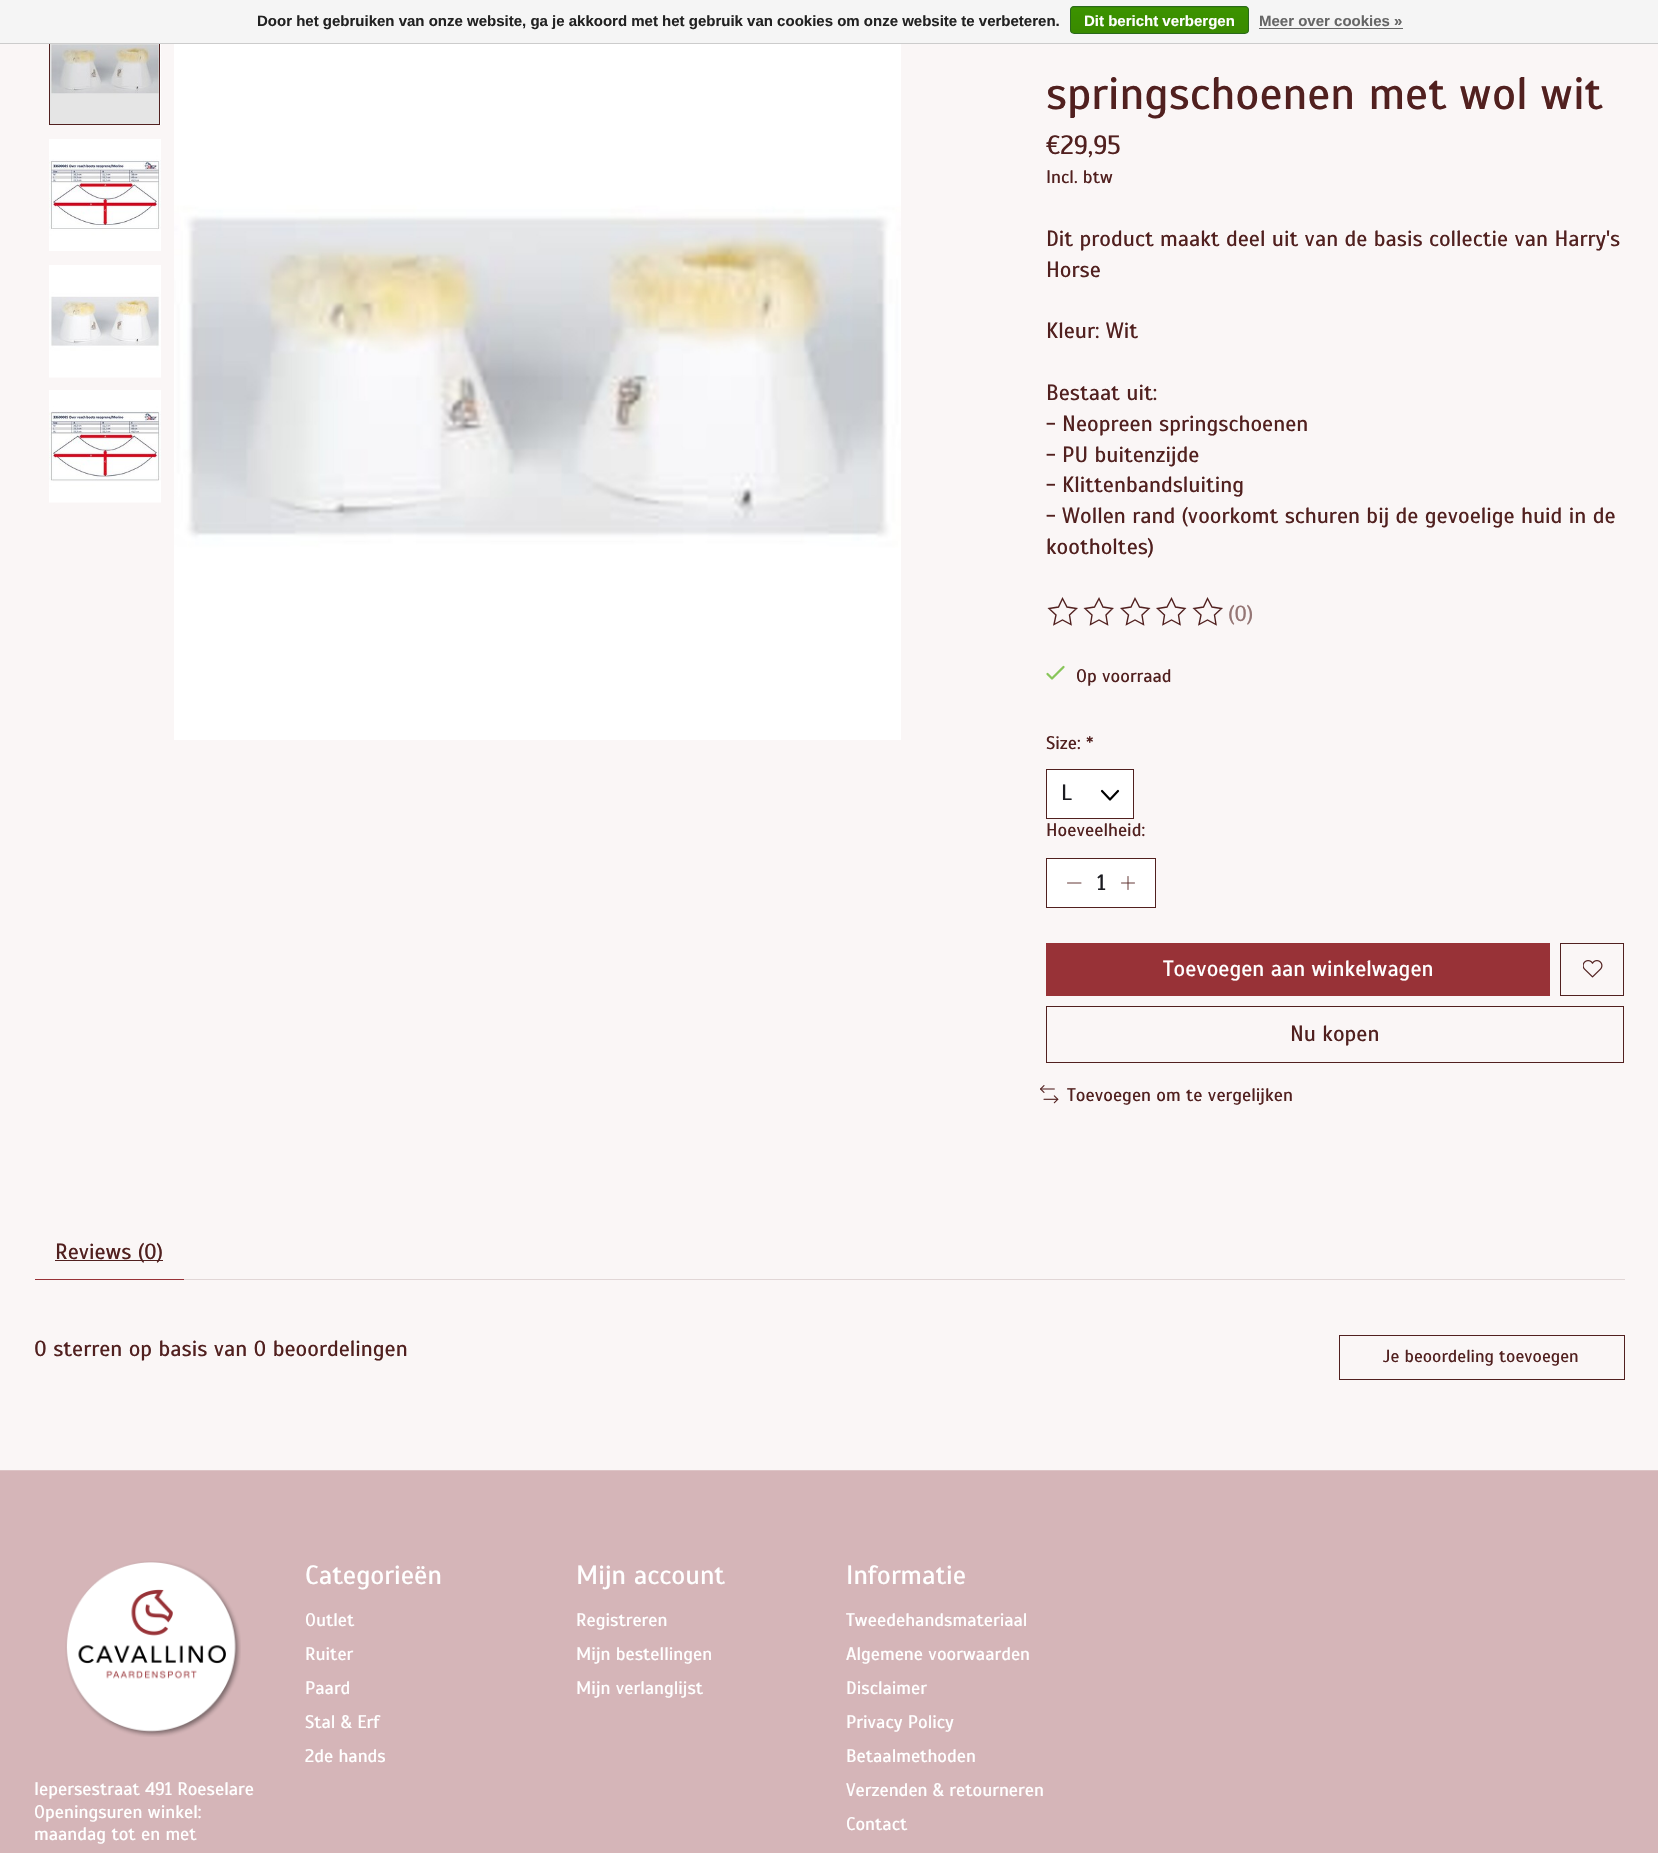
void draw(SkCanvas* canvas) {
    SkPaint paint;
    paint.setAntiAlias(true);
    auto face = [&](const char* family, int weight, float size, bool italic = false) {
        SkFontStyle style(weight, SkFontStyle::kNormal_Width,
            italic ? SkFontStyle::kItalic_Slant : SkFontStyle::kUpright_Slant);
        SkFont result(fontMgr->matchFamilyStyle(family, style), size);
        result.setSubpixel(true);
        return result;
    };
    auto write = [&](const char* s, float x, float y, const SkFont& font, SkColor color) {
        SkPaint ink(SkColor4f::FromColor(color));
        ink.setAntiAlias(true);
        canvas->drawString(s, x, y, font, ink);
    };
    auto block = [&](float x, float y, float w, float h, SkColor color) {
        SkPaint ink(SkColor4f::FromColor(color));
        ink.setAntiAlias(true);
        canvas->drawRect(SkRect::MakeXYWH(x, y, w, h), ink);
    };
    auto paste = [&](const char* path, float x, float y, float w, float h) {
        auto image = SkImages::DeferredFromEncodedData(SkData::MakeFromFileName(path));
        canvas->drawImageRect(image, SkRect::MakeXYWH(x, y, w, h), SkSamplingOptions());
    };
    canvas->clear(SkColorSetRGB(250, 246, 246));
    paste("pic1.png", 50, 44, 111, 81);
    paint.setStyle(SkPaint::kStroke_Style);
    paint.setStrokeWidth(1);
    paint.setColor(SkColorSetRGB(81, 32, 31));
    canvas->drawRect(SkRect::MakeXYWH(49.5f, 13.5f, 110, 111), paint);
    block(0, 0, 1658, 43, SkColorSetRGB(245, 245, 245));
    block(0, 43, 1658, 1, SkColorSetRGB(204, 204, 204));
    auto kFont1 = face("Liberation Sans", 700, 15);
    write("Door het gebruiken van onze website, ga je akkoord met het gebruik van cookies om onze website te verbeteren.", 257, 26, kFont1, SkColorSetRGB(34, 34, 34));
    canvas->save();
    canvas->clipPath(SkPathBuilder().moveTo(1074, 6).lineTo(1245, 6).cubicTo(1247, 6, 1249, 8, 1249, 10).lineTo(1249, 30).cubicTo(1249, 32, 1247, 34, 1245, 34).lineTo(1074, 34).cubicTo(1072, 34, 1070, 32, 1070, 30).lineTo(1070, 10).cubicTo(1070, 8, 1072, 6, 1074, 6).close().detach(), true);
    paint.setStyle(SkPaint::kFill_Style);
    {
        const SkColor colors[] = {SkColorSetRGB(60, 147, 0), SkColorSetRGB(57, 138, 0)};
        const float stops[] = {0, 1};
        const SkPoint ends[] = {{1159, -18}, {1159, 7.5f}};
        paint.setShader(SkGradientShader::MakeLinear(ends, colors, stops, 2, SkTileMode::kClamp));
        paint.setAlpha(255);
    }
    canvas->drawRect(SkRect::MakeXYWH(1070, 6, 179, 2), paint);
    {
        const SkColor colors[] = {SkColorSetRGB(60, 147, 0), SkColorSetRGB(57, 138, 0)};
        const float stops[] = {0, 1};
        const SkPoint ends[] = {{1159, 7.5f}, {1159, 33}};
        paint.setShader(SkGradientShader::MakeLinear(ends, colors, stops, 2, SkTileMode::kClamp));
        paint.setAlpha(255);
    }
    canvas->drawRect(SkRect::MakeXYWH(1070, 8, 179, 25), paint);
    canvas->restore();
    paint.setStyle(SkPaint::kStroke_Style);
    paint.setShader(nullptr);
    paint.setColor(SkColorSetRGB(41, 105, 29));
    canvas->drawRoundRect(SkRect::MakeXYWH(1070.5f, 6.5f, 178, 27), 3.5f, 3.5f, paint);
    write("Dit bericht verbergen", 1084, 26, kFont1, SK_ColorWHITE);
    write("Meer over cookies »", 1259, 26, kFont1, SkColorSetRGB(102, 102, 102));
    block(1259, 28, 144, 1, SkColorSetRGB(102, 102, 102));
    paste("pic2.png", 49, 139, 112, 112);
    paste("pic3.png", 49, 265, 112, 113);
    paste("pic4.png", 49, 390, 112, 113);
    paste("pic5.png", 174, 44, 727, 696);
    auto kFont2 = face("Scada", 400, 45.6f);
    write("springschoenen met wol wit", 1046, 109, kFont2, SkColorSetRGB(81, 32, 31));
    auto kFont3 = face("Scada", 400, 26.5f);
    write("€29,95", 1046, 154, kFont3, SkColorSetRGB(81, 32, 31));
    auto kFont4 = face("Scada", 400, 18.25f);
    write("Incl. btw", 1046, 183, kFont4, SkColorSetRGB(81, 32, 31));
    auto kFont5 = face("Scada", 400, 22);
    write("Dit product maakt deel uit van de basis collectie van Harry's", 1046, 246, kFont5, SkColorSetRGB(81, 32, 31));
    write("Horse", 1046, 277, kFont5, SkColorSetRGB(81, 32, 31));
    write("Kleur: Wit", 1046, 338, kFont5, SkColorSetRGB(81, 32, 31));
    write("Bestaat uit:", 1046, 400, kFont5, SkColorSetRGB(81, 32, 31));
    write("- Neopreen springschoenen", 1046, 431, kFont5, SkColorSetRGB(81, 32, 31));
    write("- PU buitenzijde", 1046, 462, kFont5, SkColorSetRGB(81, 32, 31));
    write("- Klittenbandsluiting", 1046, 492, kFont5, SkColorSetRGB(81, 32, 31));
    write("- Wollen rand (voorkomt schuren bij de gevoelige huid in de", 1046, 523, kFont5, SkColorSetRGB(81, 32, 31));
    write("kootholtes)", 1046, 554, kFont5, SkColorSetRGB(81, 32, 31));
    paint.setStrokeWidth(1.4f);
    paint.setColor(SkColorSetRGB(81, 32, 31));
    canvas->drawPath(SkPathBuilder().moveTo(1062.5f, 598.5f).lineTo(1067, 607).lineTo(1076.5f, 608.5f).lineTo(1069.5f, 615).lineTo(1071, 624.5f).lineTo(1062.5f, 620).lineTo(1054, 624.5f).lineTo(1056, 615).lineTo(1049, 608.5f).lineTo(1058.5f, 607).close().detach(), paint);
    canvas->drawPath(SkPathBuilder().moveTo(1099, 598.5f).lineTo(1103, 607).lineTo(1112.5f, 608.5f).lineTo(1106, 615).lineTo(1107.5f, 624.5f).lineTo(1099, 620).lineTo(1090.5f, 624.5f).lineTo(1092, 615).lineTo(1085, 608.5f).lineTo(1094.5f, 607).close().detach(), paint);
    canvas->drawPath(SkPathBuilder().moveTo(1135, 598.5f).lineTo(1139.5f, 607).lineTo(1149, 608.5f).lineTo(1142, 615).lineTo(1143.5f, 624.5f).lineTo(1135, 620).lineTo(1126.5f, 624.5f).lineTo(1128.5f, 615).lineTo(1121.5f, 608.5f).lineTo(1131, 607).close().detach(), paint);
    canvas->drawPath(SkPathBuilder().moveTo(1171.5f, 598.5f).lineTo(1175.5f, 607).lineTo(1185, 608.5f).lineTo(1178.5f, 615).lineTo(1180, 624.5f).lineTo(1171.5f, 620).lineTo(1163, 624.5f).lineTo(1164.5f, 615).lineTo(1157.5f, 608.5f).lineTo(1167, 607).close().detach(), paint);
    canvas->drawPath(SkPathBuilder().moveTo(1207.5f, 598.5f).lineTo(1212, 607).lineTo(1221.5f, 608.5f).lineTo(1214.5f, 615).lineTo(1216, 624.5f).lineTo(1207.5f, 620).lineTo(1199, 624.5f).lineTo(1201, 615).lineTo(1194, 608.5f).lineTo(1203.5f, 607).close().detach(), paint);
    write("(0)", 1228, 621, kFont5, SkColorSetRGB(149, 118, 117));
    paint.setStrokeWidth(2.3f);
    paint.setStrokeCap(SkPaint::kRound_Cap);
    paint.setStrokeJoin(SkPaint::kRound_Join);
    paint.setColor(SkColorSetRGB(136, 197, 89));
    canvas->drawPath(SkPathBuilder().moveTo(1047.5f, 674).lineTo(1052, 678.5f).lineTo(1063.5f, 667).detach(), paint);
    write("Op voorraad", 1076, 682, kFont4, SkColorSetRGB(81, 32, 31));
    write("Size: *", 1046, 749, kFont4, SkColorSetRGB(81, 32, 31));
    block(1047, 770, 86, 48, SK_ColorWHITE);
    paint.setStrokeWidth(2.2f);
    paint.setColor(SK_ColorBLACK);
    canvas->drawPath(SkPathBuilder().moveTo(1118, 791).lineTo(1110, 799.5f).lineTo(1102, 791).detach(), paint);
    paint.setStrokeWidth(1);
    paint.setStrokeCap(SkPaint::kButt_Cap);
    paint.setStrokeJoin(SkPaint::kMiter_Join);
    paint.setColor(SkColorSetRGB(81, 32, 31));
    canvas->drawRect(SkRect::MakeXYWH(1046.5f, 769.5f, 87, 49), paint);
    write("L", 1061, 800, kFont5, SkColorSetRGB(28, 28, 33));
    write("Hoeveelheid:", 1046, 836, kFont4, SkColorSetRGB(81, 32, 31));
    paint.setStyle(SkPaint::kFill_Style);
    paint.setColor(SK_ColorWHITE);
    canvas->drawRect(SkRect::MakeXYWH(1046.5f, 858.5f, 109, 49), paint);
    paint.setStyle(SkPaint::kStroke_Style);
    paint.setColor(SkColorSetRGB(81, 32, 31));
    canvas->drawRect(SkRect::MakeXYWH(1046.5f, 858.5f, 109, 49), paint);
    paint.setStrokeWidth(0.9f);
    paint.setStrokeCap(SkPaint::kRound_Cap);
    paint.setStrokeJoin(SkPaint::kRound_Join);
    canvas->drawPath(SkPathBuilder().moveTo(1067.5f, 883).lineTo(1081, 883).detach(), paint);
    write("1", 1097, 890, kFont5, SkColorSetRGB(28, 28, 33));
    canvas->drawPath(SkPathBuilder().moveTo(1128, 876.5f).lineTo(1128, 889.5f).moveTo(1121.5f, 883).lineTo(1134.5f, 883).detach(), paint);
    block(1046, 943, 504, 53, SkColorSetRGB(152, 50, 55));
    write("Toevoegen aan winkelwagen", 1163, 976, kFont5, SK_ColorWHITE);
    paint.setStrokeWidth(1);
    paint.setStrokeCap(SkPaint::kButt_Cap);
    paint.setStrokeJoin(SkPaint::kMiter_Join);
    canvas->drawRect(SkRect::MakeXYWH(1560.5f, 943.5f, 63, 52), paint);
    paste("pic6.png", 1583, 960, 20, 18);
    canvas->drawRect(SkRect::MakeXYWH(1046.5f, 1006.5f, 577, 56), paint);
    write("Nu kopen", 1290, 1041, kFont5, SkColorSetRGB(81, 32, 31));
    paste("pic7.png", 1040, 1085, 19, 19);
    write("Toevoegen om te vergelijken", 1067, 1101, kFont4, SkColorSetRGB(81, 32, 31));
    block(35, 1279, 149, 1, SkColorSetRGB(152, 50, 55));
    block(55, 1260, 108, 1, SkColorSetRGB(81, 32, 31));
    write("Reviews (0)", 55, 1259, kFont5, SkColorSetRGB(81, 32, 31));
    block(184, 1279, 1441, 1, SkColorSetRGB(225, 214, 214));
    write("0 sterren op basis van 0 beoordelingen", 34, 1356, kFont5, SkColorSetRGB(81, 32, 31));
    canvas->drawRect(SkRect::MakeXYWH(1339.5f, 1335.5f, 285, 44), paint);
    auto kFont6 = face("Scada", 400, 17.6f);
    write("Je beoordeling toevoegen", 1383, 1362, kFont6, SkColorSetRGB(81, 32, 31));
    block(0, 1471, 1658, 382, SkColorSetRGB(213, 181, 184));
    block(0, 1470, 1658, 1, SkColorSetRGB(221, 196, 198));
    paste("pic8.png", 65, 1561, 176, 176);
    write("Iepersestraat 491 Roeselare", 34, 1795, kFont4, SK_ColorWHITE);
    write("Openingsuren winkel:", 34, 1818, kFont4, SK_ColorWHITE);
    write("maandag tot en met", 34, 1840, kFont4, SK_ColorWHITE);
    write("Categorieën", 305, 1584, kFont3, SK_ColorWHITE);
    write("Outlet", 305, 1626, kFont4, SK_ColorWHITE);
    write("Ruiter", 305, 1660, kFont4, SK_ColorWHITE);
    write("Paard", 305, 1694, kFont4, SK_ColorWHITE);
    write("Stal & Erf", 305, 1728, kFont4, SK_ColorWHITE);
    write("2de hands", 305, 1762, kFont4, SK_ColorWHITE);
    write("Mijn account", 576, 1584, kFont3, SK_ColorWHITE);
    write("Registreren", 576, 1626, kFont4, SK_ColorWHITE);
    write("Mijn bestellingen", 576, 1660, kFont4, SK_ColorWHITE);
    write("Mijn verlanglijst", 576, 1694, kFont4, SK_ColorWHITE);
    write("Informatie", 846, 1584, kFont3, SK_ColorWHITE);
    write("Tweedehandsmateriaal", 846, 1626, kFont4, SK_ColorWHITE);
    write("Algemene voorwaarden", 846, 1660, kFont4, SK_ColorWHITE);
    write("Disclaimer", 846, 1694, kFont4, SK_ColorWHITE);
    write("Privacy Policy", 846, 1728, kFont4, SK_ColorWHITE);
    write("Betaalmethoden", 846, 1762, kFont4, SK_ColorWHITE);
    write("Verzenden & retourneren", 846, 1796, kFont4, SK_ColorWHITE);
    write("Contact", 846, 1830, kFont4, SK_ColorWHITE);
}
